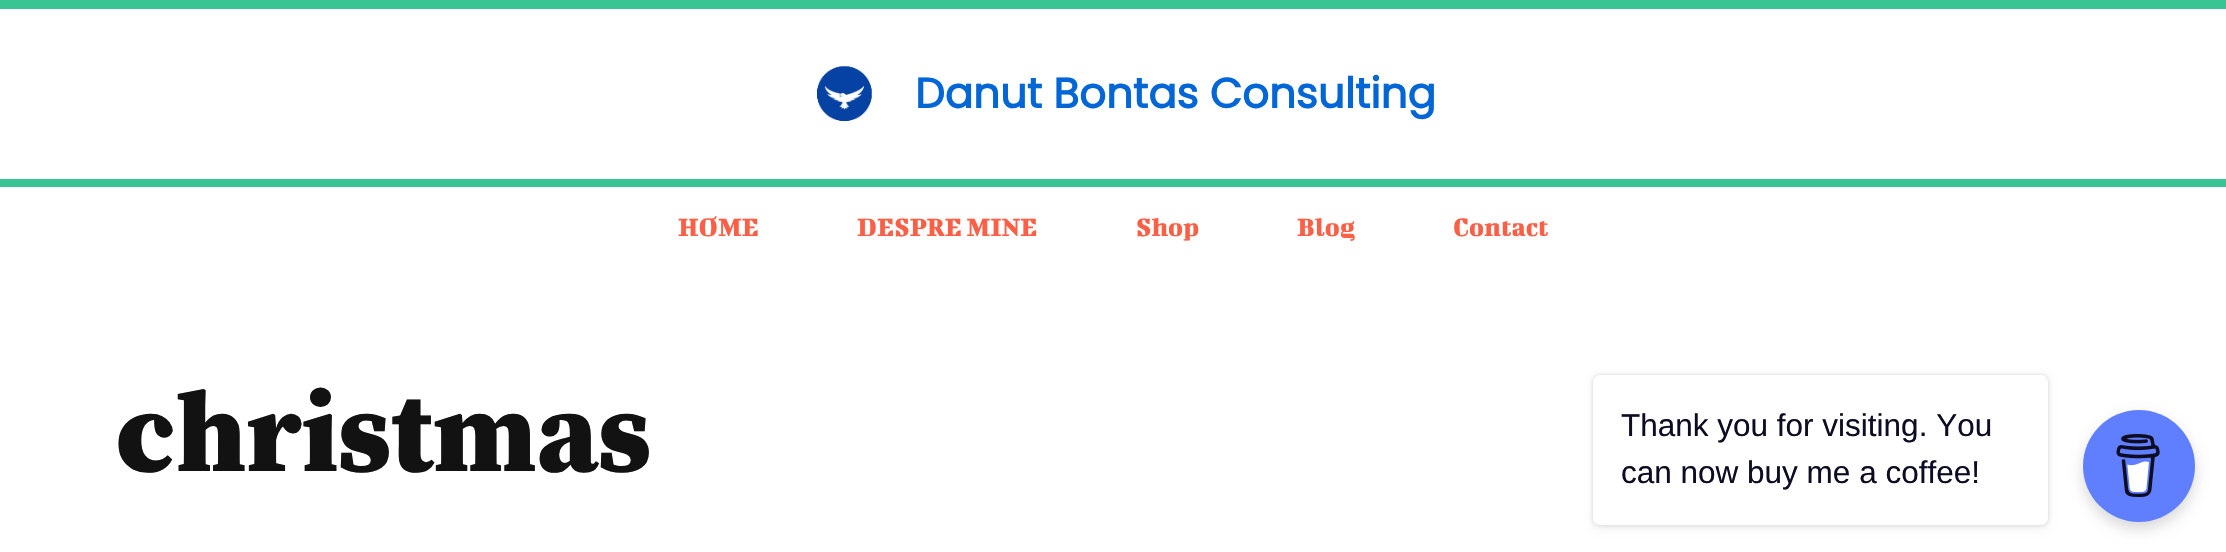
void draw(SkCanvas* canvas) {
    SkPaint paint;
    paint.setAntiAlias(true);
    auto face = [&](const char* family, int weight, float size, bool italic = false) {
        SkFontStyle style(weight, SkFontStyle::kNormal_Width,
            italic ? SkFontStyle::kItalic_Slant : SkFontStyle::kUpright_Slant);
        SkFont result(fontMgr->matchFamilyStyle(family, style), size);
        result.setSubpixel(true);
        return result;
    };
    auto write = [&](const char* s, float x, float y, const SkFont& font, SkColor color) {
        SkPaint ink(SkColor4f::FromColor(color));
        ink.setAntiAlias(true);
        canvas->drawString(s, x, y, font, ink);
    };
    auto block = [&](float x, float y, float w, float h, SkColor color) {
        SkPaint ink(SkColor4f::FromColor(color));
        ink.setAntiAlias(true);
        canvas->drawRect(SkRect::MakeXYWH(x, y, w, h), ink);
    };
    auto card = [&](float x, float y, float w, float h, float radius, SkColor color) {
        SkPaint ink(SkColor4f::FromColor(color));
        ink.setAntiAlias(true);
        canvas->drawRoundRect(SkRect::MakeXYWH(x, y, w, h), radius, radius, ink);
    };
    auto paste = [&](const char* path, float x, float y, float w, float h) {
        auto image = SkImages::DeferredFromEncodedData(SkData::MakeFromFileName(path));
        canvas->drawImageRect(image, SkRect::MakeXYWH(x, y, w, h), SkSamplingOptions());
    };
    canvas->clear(SK_ColorWHITE);
    block(0, 0, 2226, 9, SkColorSetRGB(56, 196, 147));
    block(0, 179, 2226, 8, SkColorSetRGB(56, 196, 147));
    paste("pic1.png", 816, 65, 57, 57);
    auto kFont1 = face("Poppins", 700, 42);
    write("Danut Bontas Consulting", 915, 108, kFont1, SkColorSetRGB(3, 102, 214));
    auto kFont2 = face("Bigshot One", 400, 28);
    write("HOME", 678, 236, kFont2, SkColorSetRGB(252, 95, 69));
    write("DESPRE MINE", 857, 236, kFont2, SkColorSetRGB(252, 95, 69));
    write("Shop", 1136, 236, kFont2, SkColorSetRGB(252, 95, 69));
    write("Blog", 1297, 236, kFont2, SkColorSetRGB(252, 95, 69));
    write("Contact", 1453, 236, kFont2, SkColorSetRGB(252, 95, 69));
    auto kFont3 = face("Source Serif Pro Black", 900, 113.75f);
    write("christmas", 116, 471, kFont3, SkColorSetRGB(18, 18, 18));
    paint.setColor(SkColorSetARGB(38, 0, 0, 0));
    paint.setMaskFilter(SkMaskFilter::MakeBlur(kNormal_SkBlurStyle, 2));
    canvas->drawRoundRect(SkRect::MakeXYWH(1593, 375, 455, 150), 7, 7, paint);
    paint.setMaskFilter(nullptr);
    paint.setColor(SkColorSetARGB(13, 0, 0, 0));
    paint.setMaskFilter(SkMaskFilter::MakeBlur(kNormal_SkBlurStyle, 4.5f));
    canvas->drawRoundRect(SkRect::MakeXYWH(1593, 378, 455, 151), 7, 7, paint);
    paint.setMaskFilter(nullptr);
    card(1593, 375, 455, 150, 7, SK_ColorWHITE);
    auto kFont4 = face("Liberation Sans", 400, 31.5f);
    write("Thank you for visiting. You", 1621, 436, kFont4, SkColorSetRGB(13, 12, 34));
    write("can now buy me a coffee!", 1621, 483, kFont4, SkColorSetRGB(13, 12, 34));
    paint.setColor(SkColorSetARGB(38, 0, 0, 0));
    paint.setMaskFilter(SkMaskFilter::MakeBlur(kNormal_SkBlurStyle, 7));
    canvas->drawRoundRect(SkRect::MakeXYWH(2083, 417, 112, 112), 56, 56, paint);
    paint.setMaskFilter(nullptr);
    paint.setColor(SkColorSetRGB(95, 127, 255));
    canvas->drawCircle(2139, 466, 56, paint);
    paste("pic2.png", 2116, 434, 44, 63);
}
